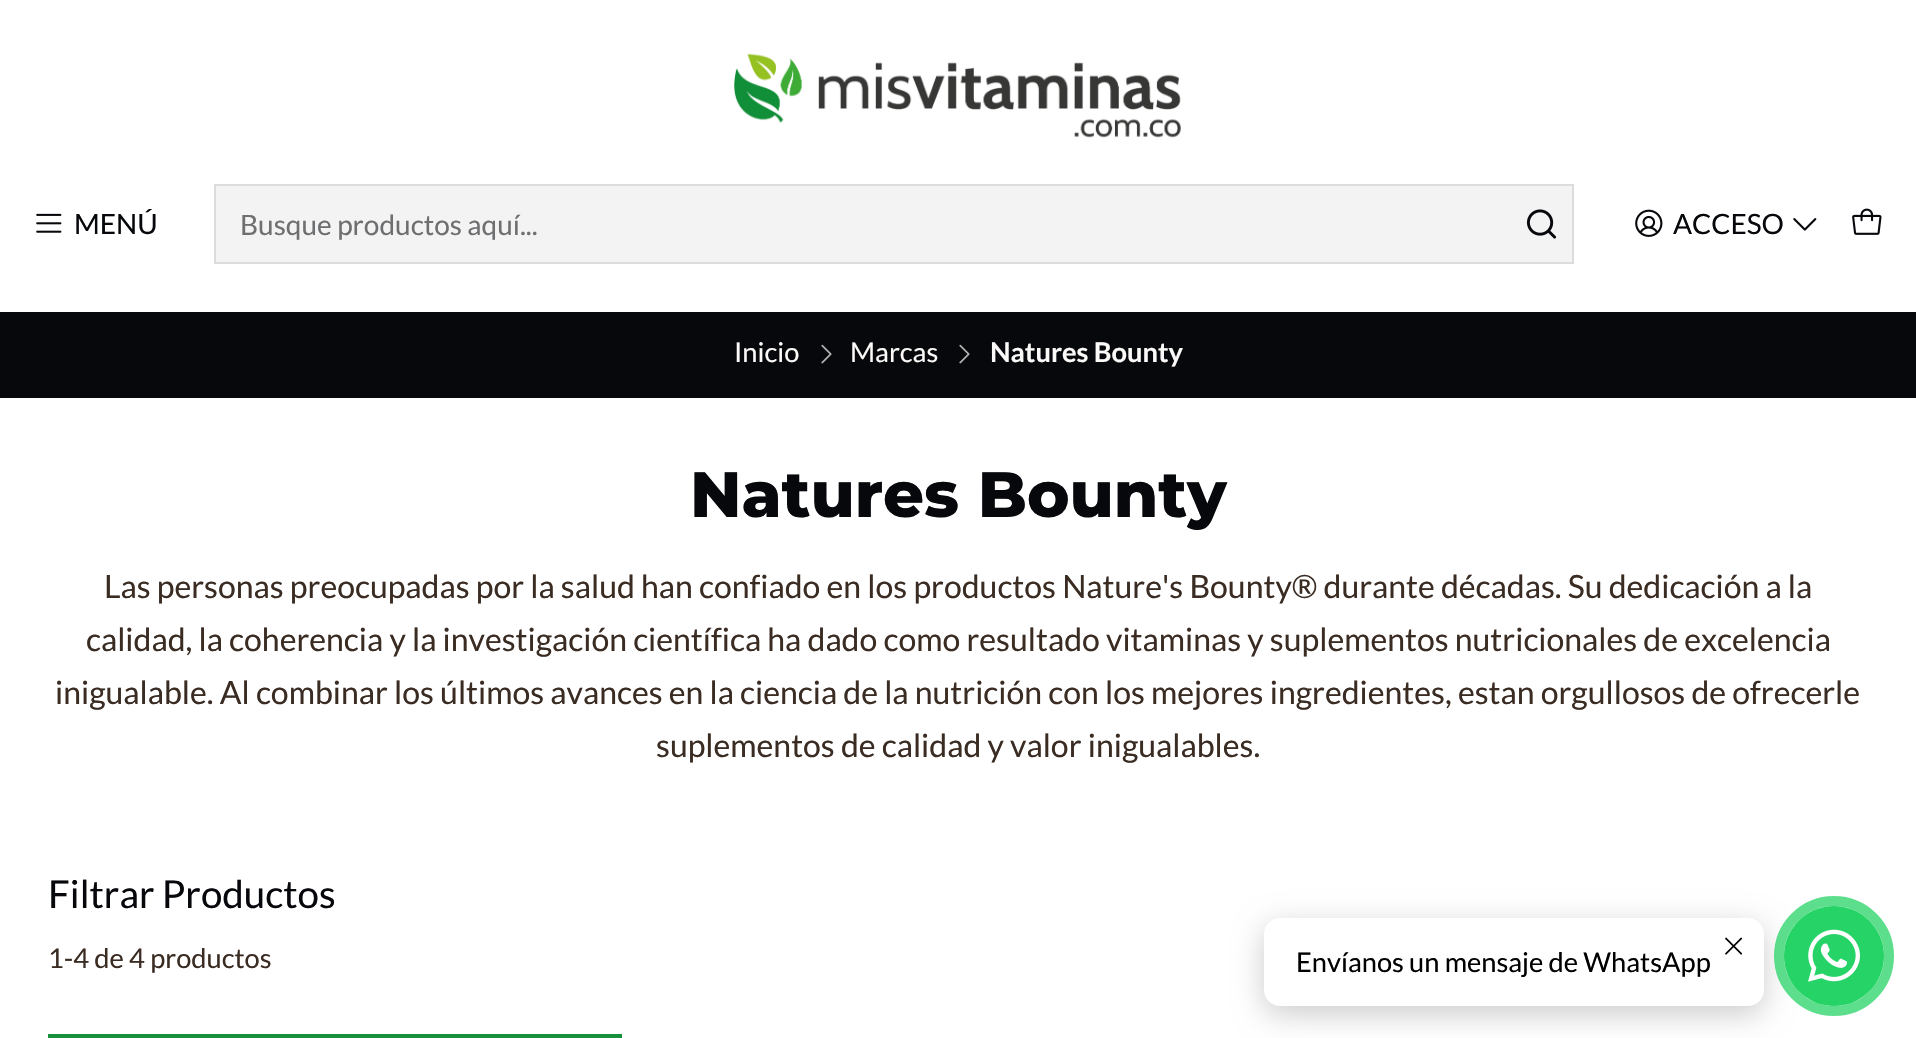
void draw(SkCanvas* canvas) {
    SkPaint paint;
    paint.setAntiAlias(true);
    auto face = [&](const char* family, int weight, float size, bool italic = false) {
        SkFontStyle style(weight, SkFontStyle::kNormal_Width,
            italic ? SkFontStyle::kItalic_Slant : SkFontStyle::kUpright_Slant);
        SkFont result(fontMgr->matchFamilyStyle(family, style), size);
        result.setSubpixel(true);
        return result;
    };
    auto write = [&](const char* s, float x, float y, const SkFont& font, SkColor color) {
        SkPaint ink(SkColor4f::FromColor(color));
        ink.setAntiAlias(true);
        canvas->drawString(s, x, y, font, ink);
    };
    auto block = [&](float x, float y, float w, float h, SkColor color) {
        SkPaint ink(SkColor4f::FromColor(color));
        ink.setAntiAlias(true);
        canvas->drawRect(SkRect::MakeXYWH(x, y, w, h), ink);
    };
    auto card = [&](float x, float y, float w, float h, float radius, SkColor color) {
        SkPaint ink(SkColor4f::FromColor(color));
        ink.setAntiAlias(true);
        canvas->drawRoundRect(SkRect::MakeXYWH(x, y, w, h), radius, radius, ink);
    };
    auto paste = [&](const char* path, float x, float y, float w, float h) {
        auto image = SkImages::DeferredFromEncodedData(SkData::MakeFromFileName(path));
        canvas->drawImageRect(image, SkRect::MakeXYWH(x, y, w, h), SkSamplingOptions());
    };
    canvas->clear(SK_ColorWHITE);
    paste("pic1.png", 734, 53, 447, 85);
    paste("pic2.png", 36, 213, 26, 20);
    auto kFont1 = face("Lato", 400, 28);
    write("MENÚ", 74, 234, kFont1, SkColorSetRGB(6, 8, 11));
    paint.setColor(SkColorSetRGB(243, 243, 243));
    canvas->drawRect(SkRect::MakeXYWH(215, 185, 1358, 78), paint);
    paint.setStyle(SkPaint::kStroke_Style);
    paint.setStrokeWidth(2);
    paint.setColor(SkColorSetRGB(219, 220, 220));
    canvas->drawRect(SkRect::MakeXYWH(215, 185, 1358, 78), paint);
    write("Busque productos aquí...", 240, 235, kFont1, SkColorSetRGB(110, 111, 113));
    paste("pic3.png", 1526, 209, 31, 30);
    paste("pic4.png", 1635, 209, 28, 28);
    write("ACCESO", 1673, 234, kFont1, SkColorSetRGB(6, 8, 11));
    paste("pic5.png", 1793, 218, 24, 13);
    paste("pic6.png", 1852, 208, 30, 27);
    block(0, 312, 1916, 86, SkColorSetRGB(6, 8, 11));
    auto kFont2 = face("Lato", 400, 27.25f);
    write("Inicio", 734, 362, kFont2, SkColorSetRGB(252, 250, 249));
    paste("pic7.png", 821, 344, 11, 20);
    write("Marcas", 850, 362, kFont2, SkColorSetRGB(252, 250, 249));
    paste("pic7.png", 959, 344, 11, 20);
    auto kFont3 = face("Lato", 700, 27.25f);
    write("Natures Bounty", 990, 362, kFont3, SkColorSetRGB(252, 250, 249));
    auto kFont4 = face("Montserrat", 800, 64);
    write("Natures Bounty", 690, 517, kFont4, SkColorSetRGB(6, 8, 11));
    auto kFont5 = face("Lato", 400, 32);
    write("Las personas preocupadas por la salud han confiado en los productos Nature's Bounty® durante décadas. Su dedicación a la", 104, 598, kFont5, SkColorSetRGB(58, 44, 35));
    write("calidad, la coherencia y la investigación científica ha dado como resultado vitaminas y suplementos nutricionales de excelencia", 86, 651, kFont5, SkColorSetRGB(58, 44, 35));
    write("inigualable. Al combinar los últimos avances en la ciencia de la nutrición con los mejores ingredientes, estan orgullosos de ofrecerle", 55, 704, kFont5, SkColorSetRGB(58, 44, 35));
    write("suplementos de calidad y valor inigualables.", 656, 757, kFont5, SkColorSetRGB(58, 44, 35));
    auto kFont6 = face("Lato", 400, 38.5f);
    write("Filtrar Productos", 48, 908, kFont6, SkColorSetRGB(6, 8, 11));
    write("1-4 de 4 productos", 48, 968, kFont2, SkColorSetRGB(58, 44, 35));
    block(48, 1034, 574, 4, SkColorSetRGB(23, 143, 60));
    paint.setStyle(SkPaint::kFill_Style);
    paint.setColor(SkColorSetARGB(51, 0, 0, 0));
    paint.setMaskFilter(SkMaskFilter::MakeBlur(kNormal_SkBlurStyle, 15));
    canvas->drawRoundRect(SkRect::MakeXYWH(1264, 926, 500, 88), 16, 16, paint);
    paint.setMaskFilter(nullptr);
    card(1264, 918, 500, 88, 16, SK_ColorWHITE);
    paste("pic8.png", 1725, 937, 18, 18);
    write("Envíanos un mensaje de WhatsApp", 1296, 972, kFont2, SK_ColorBLACK);
    paint.setColor(SkColorSetRGB(37, 211, 102));
    canvas->drawCircle(1834, 956, 50, paint);
    paste("pic9.png", 1808, 929, 52, 53);
    paint.setStyle(SkPaint::kStroke_Style);
    paint.setStrokeWidth(10);
    paint.setColor(SkColorSetARGB(191, 37, 211, 102));
    canvas->drawCircle(1834, 956, 55, paint);
}
